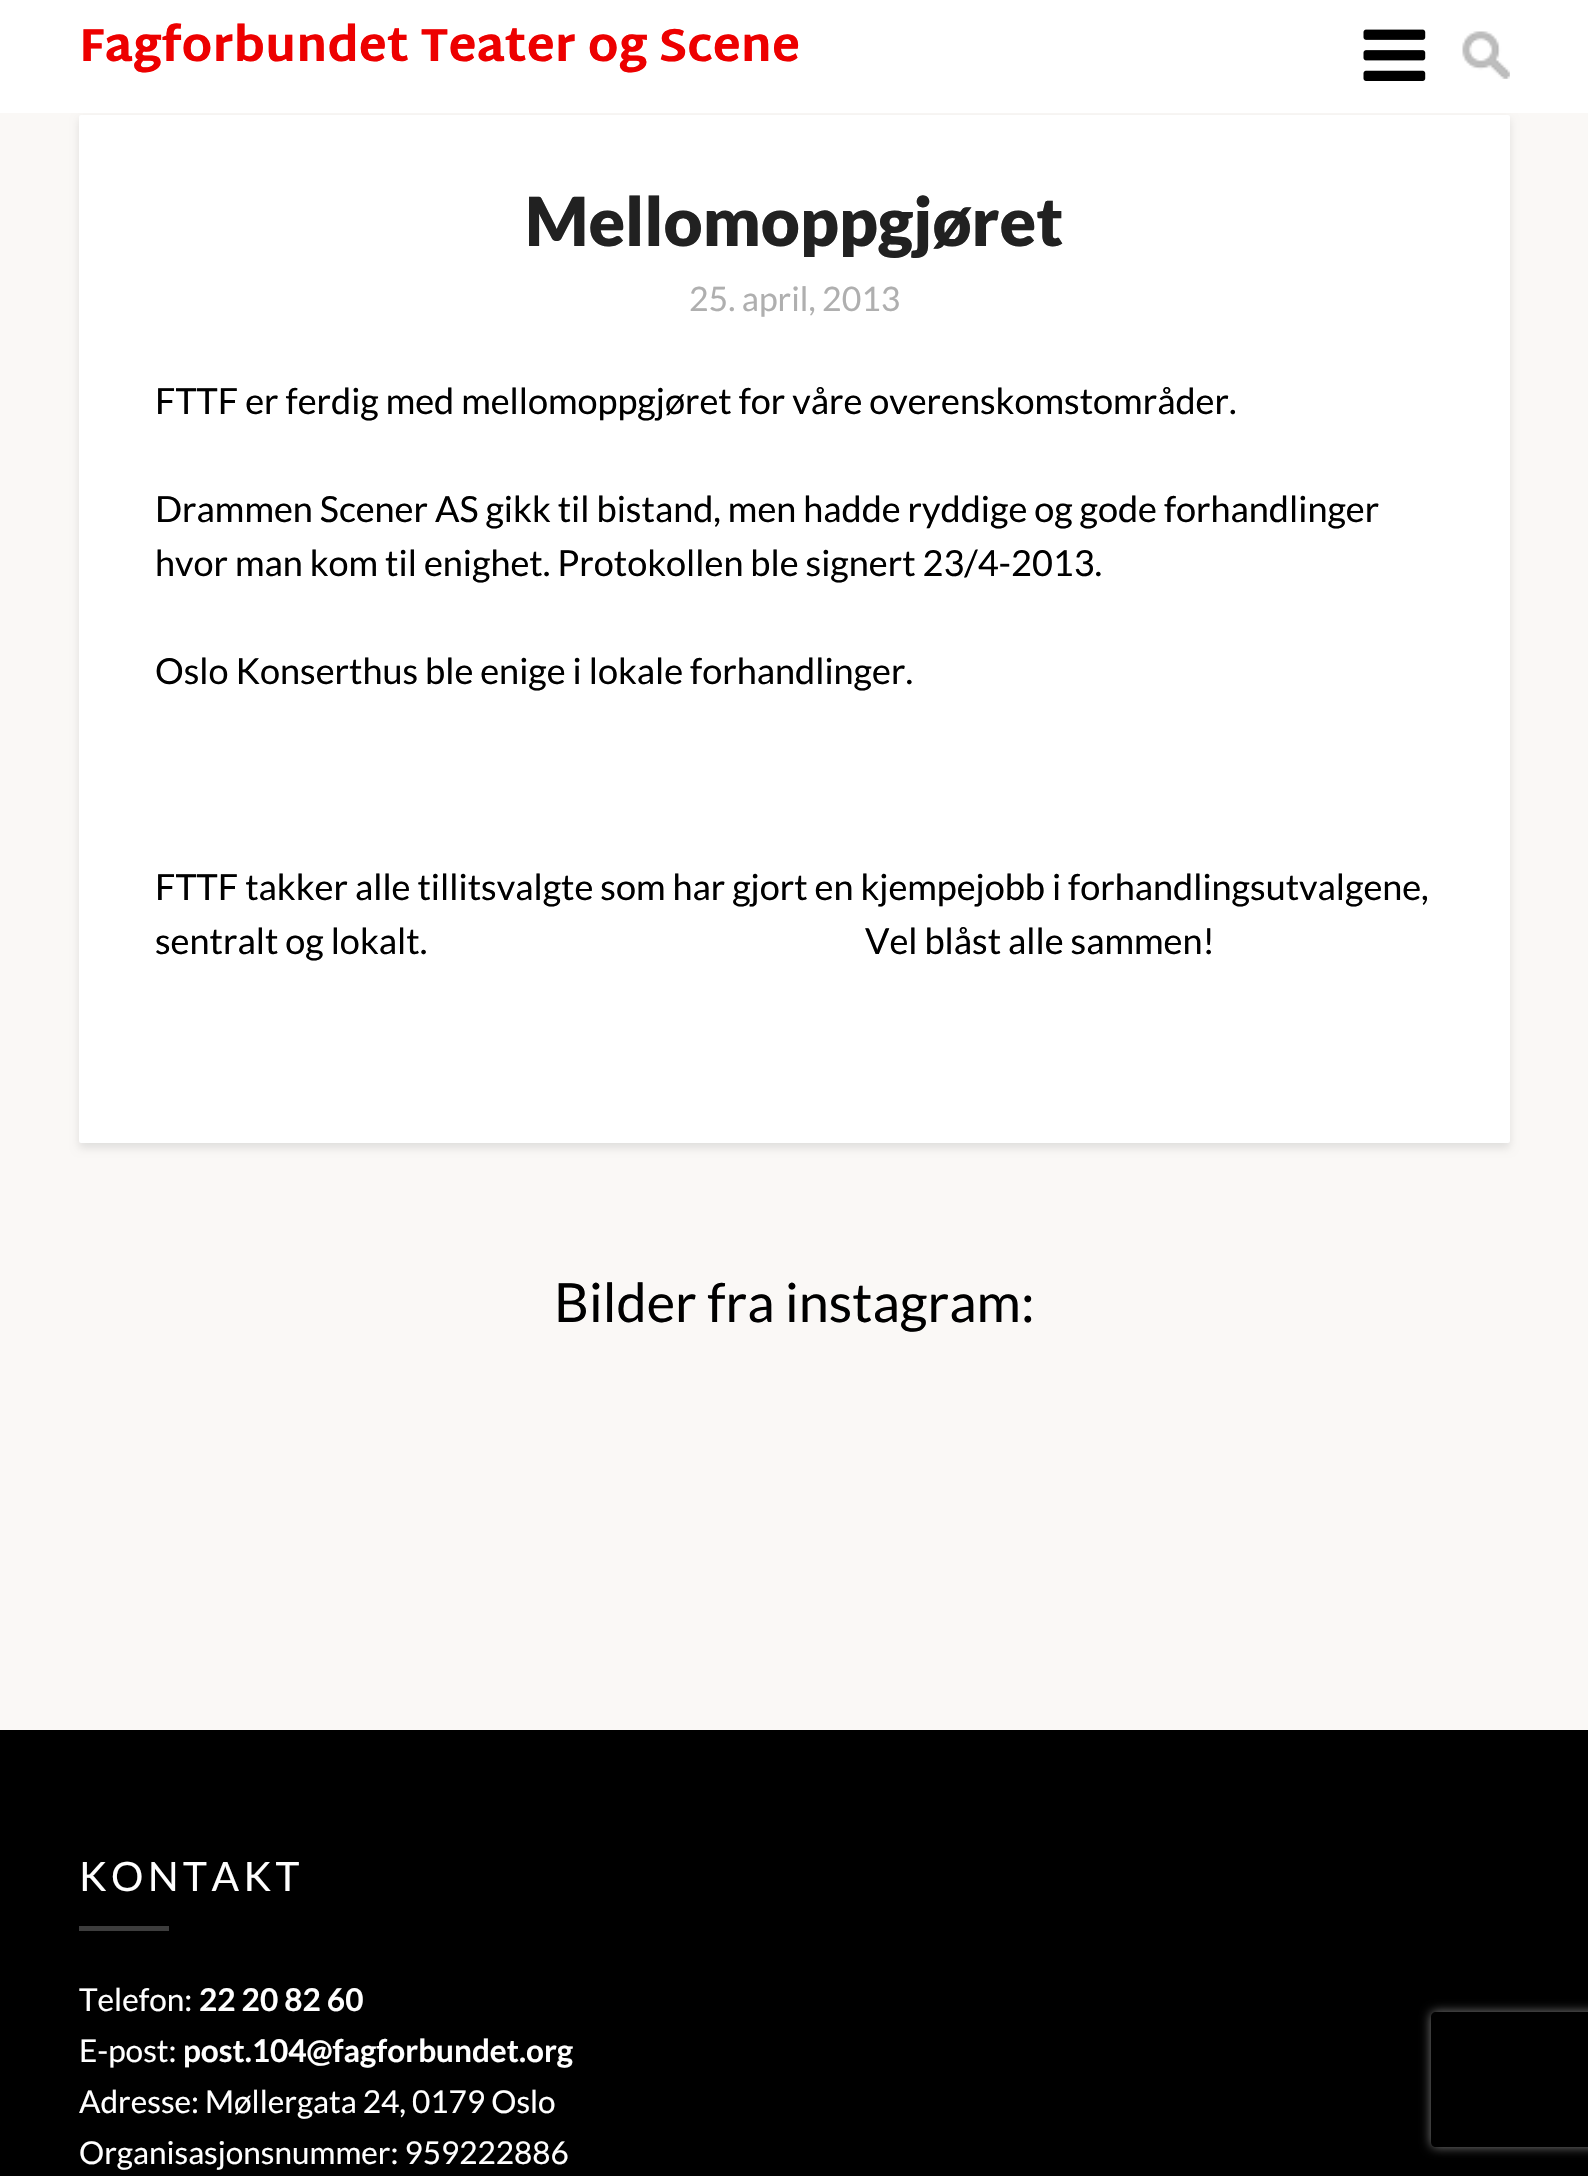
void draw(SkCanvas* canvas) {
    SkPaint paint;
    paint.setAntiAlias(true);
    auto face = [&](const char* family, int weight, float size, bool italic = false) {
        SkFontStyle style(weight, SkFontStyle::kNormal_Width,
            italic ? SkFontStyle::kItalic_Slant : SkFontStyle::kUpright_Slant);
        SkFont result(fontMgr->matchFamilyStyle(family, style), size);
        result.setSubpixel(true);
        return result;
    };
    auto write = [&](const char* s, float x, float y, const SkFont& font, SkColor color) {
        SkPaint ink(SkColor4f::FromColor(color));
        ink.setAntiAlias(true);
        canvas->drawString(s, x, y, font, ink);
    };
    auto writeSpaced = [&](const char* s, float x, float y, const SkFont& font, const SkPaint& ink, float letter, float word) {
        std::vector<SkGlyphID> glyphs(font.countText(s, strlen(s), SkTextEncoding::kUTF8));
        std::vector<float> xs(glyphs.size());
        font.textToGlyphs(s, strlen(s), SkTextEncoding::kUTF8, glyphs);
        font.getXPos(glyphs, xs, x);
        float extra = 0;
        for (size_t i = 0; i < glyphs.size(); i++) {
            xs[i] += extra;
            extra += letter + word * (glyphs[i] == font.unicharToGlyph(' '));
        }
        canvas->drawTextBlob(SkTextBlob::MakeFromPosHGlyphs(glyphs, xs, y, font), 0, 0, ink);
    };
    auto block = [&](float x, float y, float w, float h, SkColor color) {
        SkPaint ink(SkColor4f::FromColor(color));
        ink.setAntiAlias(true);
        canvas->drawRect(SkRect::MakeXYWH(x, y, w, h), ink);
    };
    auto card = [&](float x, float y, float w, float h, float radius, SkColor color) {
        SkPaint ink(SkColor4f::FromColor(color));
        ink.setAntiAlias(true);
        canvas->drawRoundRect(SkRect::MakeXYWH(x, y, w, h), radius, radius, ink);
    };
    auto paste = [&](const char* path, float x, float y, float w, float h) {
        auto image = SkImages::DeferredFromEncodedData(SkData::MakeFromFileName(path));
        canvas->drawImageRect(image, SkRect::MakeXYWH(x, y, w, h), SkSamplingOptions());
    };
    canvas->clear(SkColorSetRGB(250, 248, 246));
    paint.setColor(SkColorSetARGB(26, 0, 0, 0));
    paint.setMaskFilter(SkMaskFilter::MakeBlur(kNormal_SkBlurStyle, 4.5f));
    canvas->drawRoundRect(SkRect::MakeXYWH(79, 119, 1431, 1029), 2, 2, paint);
    paint.setMaskFilter(nullptr);
    block(0, 0, 1588, 113, SK_ColorWHITE);
    auto kFont1 = face("Martel Sans", 800, 46.75f);
    write("Fagforbundet Teater og Scene", 79, 61, kFont1, SkColorSetRGB(237, 0, 0));
    paste("pic1.png", 1363, 29, 63, 52);
    paste("pic2.png", 1462, 31, 48, 48);
    card(79, 115, 1431, 1028, 2, SK_ColorWHITE);
    auto kFont2 = face("Lato", 900, 67.5f);
    write("Mellomoppgjøret", 525, 246, kFont2, SkColorSetRGB(33, 33, 33));
    auto kFont3 = face("Lato", 400, 33.75f);
    write("25. april, 2013", 689, 311, kFont3, SkColorSetRGB(175, 175, 175));
    auto kFont4 = face("Lato", 400, 36);
    write("FTTF er ferdig med mellomoppgjøret for våre overenskomstområder.", 155, 414, kFont4, SK_ColorBLACK);
    write("Drammen Scener AS gikk til bistand, men hadde ryddige og gode forhandlinger", 155, 522, kFont4, SK_ColorBLACK);
    write("hvor man kom til enighet. Protokollen ble signert 23/4-2013.", 155, 576, kFont4, SK_ColorBLACK);
    write("Oslo Konserthus ble enige i lokale forhandlinger.", 155, 684, kFont4, SK_ColorBLACK);
    write("FTTF takker alle tillitsvalgte som har gjort en kjempejobb i forhandlingsutvalgene,", 155, 900, kFont4, SK_ColorBLACK);
    write("sentralt og lokalt.                                                               Vel blåst alle sammen!", 155, 954, kFont4, SK_ColorBLACK);
    auto kFont5 = face("Lato", 400, 54);
    write("Bilder fra instagram:", 554, 1322, kFont5, SK_ColorBLACK);
    block(0, 1730, 1588, 446, SK_ColorBLACK);
    auto kFont6 = face("Lato", 400, 40.5f);
    paint.setColor(SK_ColorWHITE);
    writeSpaced("KONTAKT", 79, 1891, kFont6, paint, 4.5f, 0);
    block(79, 1926, 90, 5, SkColorSetRGB(61, 61, 61));
    auto kFont7 = face("Lato", 400, 31.5f);
    write("Telefon:", 79, 2011, kFont7, SK_ColorWHITE);
    auto kFont8 = face("Lato", 700, 31.5f);
    write("22 20 82 60", 199, 2011, kFont8, SK_ColorWHITE);
    write("E-post:", 79, 2062, kFont7, SK_ColorWHITE);
    write("post.104@fagforbundet.org", 183, 2062, kFont8, SK_ColorWHITE);
    write("Adresse: Møllergata 24, 0179 Oslo", 79, 2113, kFont7, SK_ColorWHITE);
    write("Organisasjonsnummer: 959222886", 79, 2164, kFont7, SK_ColorWHITE);
    canvas->save();
    canvas->clipPath(SkPathBuilder(SkPathFillType::kEvenOdd).moveTo(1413, 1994).lineTo(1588, 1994).lineTo(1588, 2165).lineTo(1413, 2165).close().moveTo(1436, 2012).lineTo(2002, 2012).cubicTo(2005, 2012, 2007, 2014, 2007, 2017).lineTo(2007, 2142).cubicTo(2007, 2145, 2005, 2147, 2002, 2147).lineTo(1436, 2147).cubicTo(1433, 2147, 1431, 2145, 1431, 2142).lineTo(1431, 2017).cubicTo(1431, 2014, 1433, 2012, 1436, 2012).close().detach(), true);
    paint.setColor(SkColorSetRGB(128, 128, 128));
    paint.setMaskFilter(SkMaskFilter::MakeBlur(kNormal_SkBlurStyle, 5.5f));
    canvas->drawRoundRect(SkRect::MakeXYWH(1431, 2012, 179, 135), 5, 5, paint);
    paint.setMaskFilter(nullptr);
    canvas->restore();
}
